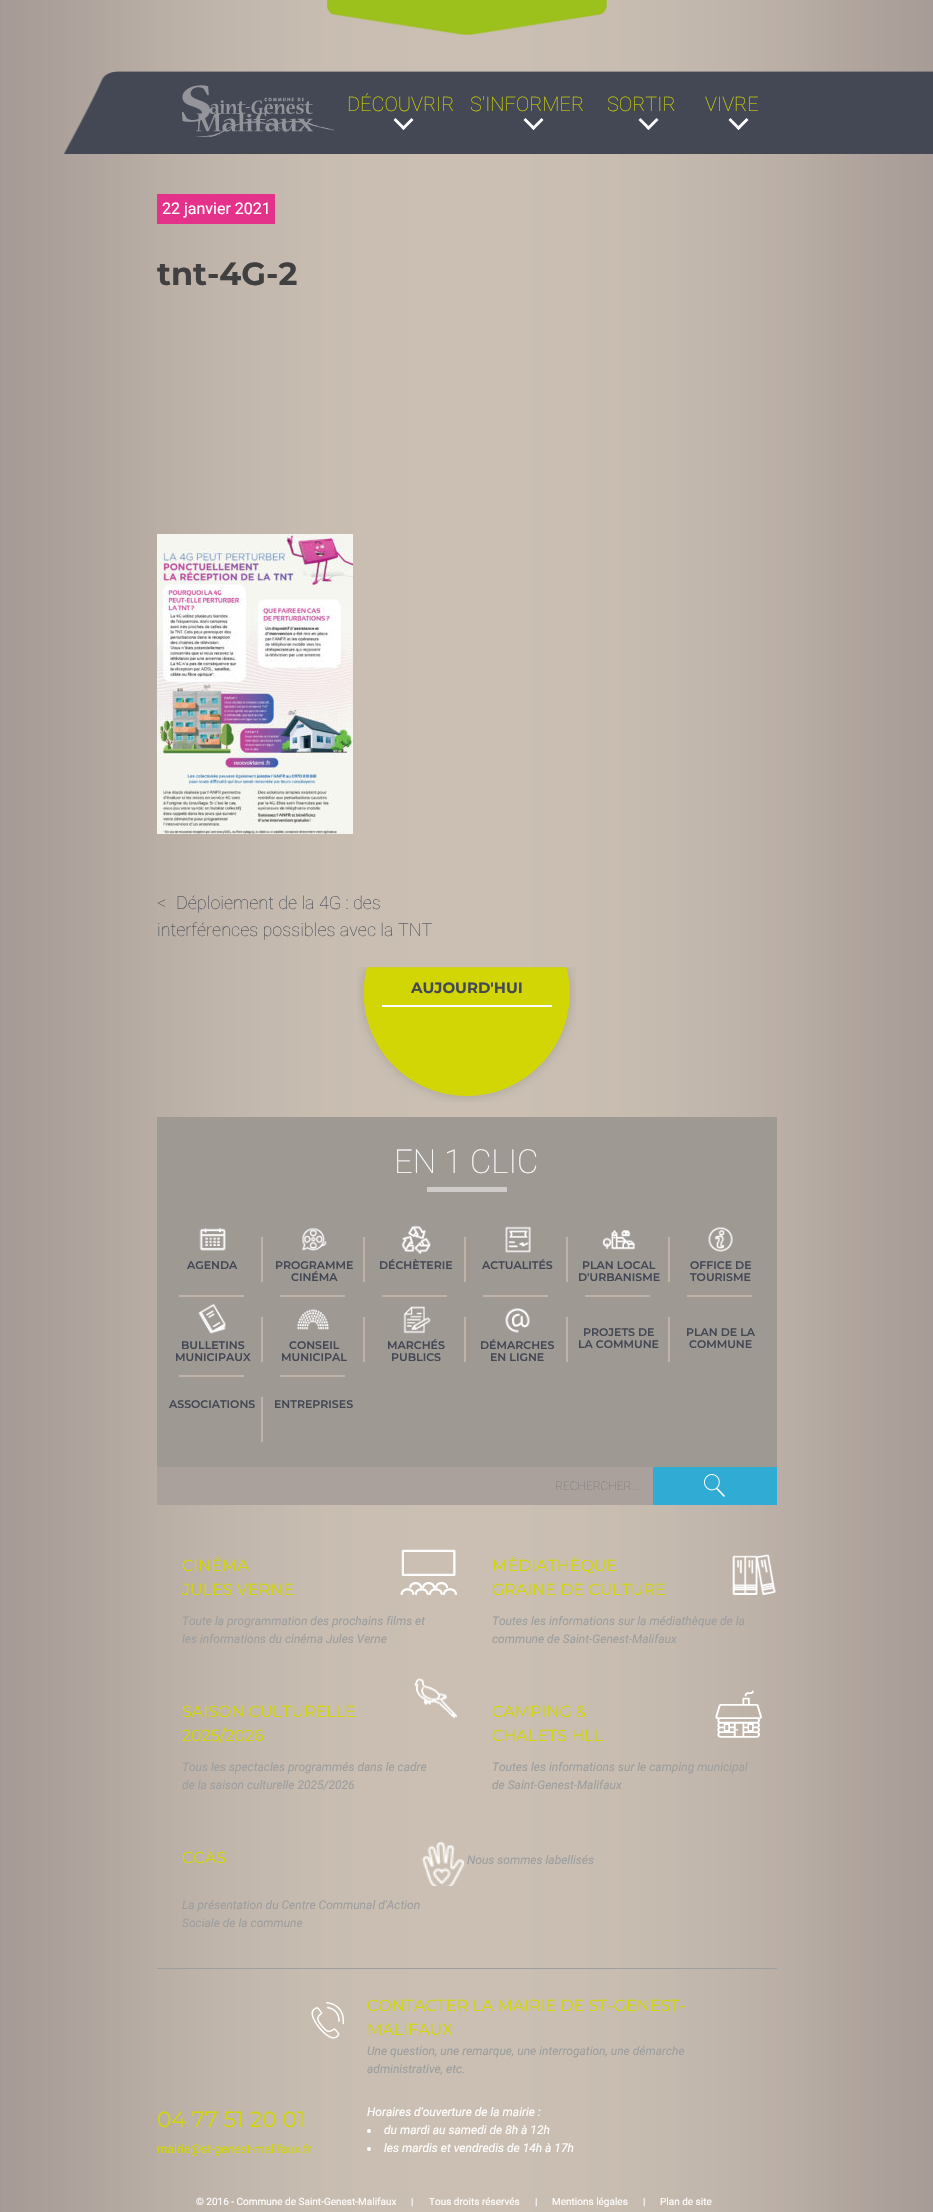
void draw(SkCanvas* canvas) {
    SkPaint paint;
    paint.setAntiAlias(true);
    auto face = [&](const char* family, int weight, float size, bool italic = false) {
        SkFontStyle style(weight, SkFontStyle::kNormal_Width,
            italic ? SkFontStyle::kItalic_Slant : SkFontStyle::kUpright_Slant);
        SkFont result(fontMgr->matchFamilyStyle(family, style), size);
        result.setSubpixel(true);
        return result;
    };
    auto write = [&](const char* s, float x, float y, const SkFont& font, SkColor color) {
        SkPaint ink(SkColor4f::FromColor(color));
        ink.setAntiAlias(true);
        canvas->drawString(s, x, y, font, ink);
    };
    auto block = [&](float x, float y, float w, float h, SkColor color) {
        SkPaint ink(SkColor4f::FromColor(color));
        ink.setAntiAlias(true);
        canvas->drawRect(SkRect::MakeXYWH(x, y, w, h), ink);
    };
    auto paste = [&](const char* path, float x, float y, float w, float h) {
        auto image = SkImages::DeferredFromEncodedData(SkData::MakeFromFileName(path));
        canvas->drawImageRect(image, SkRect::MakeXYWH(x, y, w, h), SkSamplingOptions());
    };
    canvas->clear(SK_ColorWHITE);
    paste("pic1.png", 0, 0, 933, 2212);
    paste("pic2.png", 327, 0, 280, 35);
    paste("pic3.png", 63, 71, 870, 83);
    paste("pic4.png", 181, 85, 153, 52);
    auto kFont1 = face("Roboto", 100, 20);
    write("DÉCOUVRIR", 347, 111, kFont1, SkColorSetRGB(210, 214, 5));
    paint.setColor(SK_ColorWHITE);
    canvas->drawPath(SkPathBuilder().moveTo(401.5f, 128).lineTo(411.5f, 118).lineTo(413.5f, 120).lineTo(403.5f, 130).close().detach(), paint);
    canvas->drawPath(SkPathBuilder().moveTo(395.5f, 118).lineTo(405.5f, 128).lineTo(403.5f, 130).lineTo(393.5f, 120).close().detach(), paint);
    write("S'INFORMER", 470, 111, kFont1, SkColorSetRGB(210, 214, 5));
    canvas->drawPath(SkPathBuilder().moveTo(531.5f, 128).lineTo(541.5f, 118).lineTo(543.5f, 120).lineTo(533.5f, 130).close().detach(), paint);
    canvas->drawPath(SkPathBuilder().moveTo(525.5f, 118).lineTo(535.5f, 128).lineTo(533.5f, 130).lineTo(523.5f, 120).close().detach(), paint);
    write("SORTIR", 607, 111, kFont1, SkColorSetRGB(210, 214, 5));
    canvas->drawPath(SkPathBuilder().moveTo(646.5f, 128).lineTo(656.5f, 118).lineTo(658.5f, 120).lineTo(648.5f, 130).close().detach(), paint);
    canvas->drawPath(SkPathBuilder().moveTo(640.5f, 118).lineTo(650.5f, 128).lineTo(648.5f, 130).lineTo(638.5f, 120).close().detach(), paint);
    write("VIVRE", 705, 111, kFont1, SkColorSetRGB(210, 214, 5));
    canvas->drawPath(SkPathBuilder().moveTo(736.5f, 128).lineTo(746.5f, 118).lineTo(748.5f, 120).lineTo(738.5f, 130).close().detach(), paint);
    canvas->drawPath(SkPathBuilder().moveTo(730.5f, 118).lineTo(740.5f, 128).lineTo(738.5f, 130).lineTo(728.5f, 120).close().detach(), paint);
    block(157, 194, 118, 30, SkColorSetRGB(228, 50, 138));
    auto kFont2 = face("Roboto", 400, 16);
    write("22 janvier 2021", 162, 214, kFont2, SK_ColorWHITE);
    canvas->save();
    canvas->clipRect(SkRect::MakeXYWH(157, 194, 620, 300));
    auto kFont3 = face("Montserrat", 700, 32);
    write("tnt-4G-2", 157, 285, kFont3, SkColorSetRGB(64, 64, 64));
    canvas->restore();
    paste("pic5.png", 157, 534, 196, 300);
    auto kFont4 = face("Roboto", 100, 18);
    write("<", 157, 909, kFont4, SkColorSetRGB(67, 72, 84));
    write("Déploiement de la 4G : des", 176, 909, kFont4, SkColorSetRGB(67, 72, 84));
    write("interférences possibles avec la TNT", 157, 936, kFont4, SkColorSetRGB(67, 72, 84));
    paste("pic6.png", 357, 967, 219, 135);
    block(382, 1005, 170, 2, SK_ColorWHITE);
    auto kFont5 = face("Montserrat", 700, 15);
    write("AUJOURD'HUI", 411, 993, kFont5, SkColorSetRGB(67, 72, 84));
    block(157, 1117, 620, 350, SkColorSetRGB(159, 153, 148));
    auto kFont6 = face("Roboto", 100, 33);
    write("EN 1 CLIC", 394, 1173, kFont6, SK_ColorWHITE);
    block(427, 1187, 80, 5, SkColorSetRGB(207, 204, 202));
    paste("pic7.png", 199, 1227, 27, 24);
    block(261, 1237, 2, 45, SkColorSetRGB(191, 179, 169));
    auto kFont7 = face("Montserrat", 600, 11);
    write("AGENDA", 187, 1269, kFont7, SkColorSetRGB(67, 72, 84));
    paste("pic8.png", 302, 1228, 25, 23);
    block(363, 1237, 2, 45, SkColorSetRGB(191, 179, 169));
    write("PROGRAMME", 275, 1269, kFont7, SkColorSetRGB(67, 72, 84));
    write("CINÉMA", 291, 1281, kFont7, SkColorSetRGB(67, 72, 84));
    paste("pic9.png", 401, 1225, 30, 30);
    block(464, 1237, 2, 45, SkColorSetRGB(191, 179, 169));
    write("DÉCHÈTERIE", 379, 1269, kFont7, SkColorSetRGB(67, 72, 84));
    paste("pic10.png", 505, 1226, 26, 27);
    block(566, 1237, 2, 45, SkColorSetRGB(191, 179, 169));
    write("ACTUALITÉS", 482, 1269, kFont7, SkColorSetRGB(67, 72, 84));
    paste("pic11.png", 602, 1230, 33, 20);
    block(668, 1237, 2, 45, SkColorSetRGB(191, 179, 169));
    write("PLAN LOCAL", 582, 1269, kFont7, SkColorSetRGB(67, 72, 84));
    write("D'URBANISME", 578, 1281, kFont7, SkColorSetRGB(67, 72, 84));
    paste("pic12.png", 708, 1227, 25, 25);
    write("OFFICE DE", 690, 1269, kFont7, SkColorSetRGB(67, 72, 84));
    write("TOURISME", 690, 1281, kFont7, SkColorSetRGB(67, 72, 84));
    block(179, 1295, 65, 2, SkColorSetRGB(191, 179, 169));
    paste("pic13.png", 198, 1303, 28, 31);
    block(261, 1317, 2, 45, SkColorSetRGB(191, 179, 169));
    write("BULLETINS", 181, 1349, kFont7, SkColorSetRGB(67, 72, 84));
    write("MUNICIPAUX", 175, 1361, kFont7, SkColorSetRGB(67, 72, 84));
    block(280, 1295, 65, 2, SkColorSetRGB(191, 179, 169));
    paste("pic14.png", 297, 1309, 32, 21);
    block(363, 1317, 2, 45, SkColorSetRGB(191, 179, 169));
    write("CONSEIL", 289, 1349, kFont7, SkColorSetRGB(67, 72, 84));
    write("MUNICIPAL", 281, 1361, kFont7, SkColorSetRGB(67, 72, 84));
    block(382, 1295, 65, 2, SkColorSetRGB(191, 179, 169));
    paste("pic15.png", 403, 1306, 28, 28);
    block(464, 1317, 2, 45, SkColorSetRGB(191, 179, 169));
    write("MARCHÉS", 387, 1349, kFont7, SkColorSetRGB(67, 72, 84));
    write("PUBLICS", 391, 1361, kFont7, SkColorSetRGB(67, 72, 84));
    block(483, 1295, 65, 2, SkColorSetRGB(191, 179, 169));
    paste("pic16.png", 505, 1308, 25, 25);
    block(566, 1317, 2, 45, SkColorSetRGB(191, 179, 169));
    write("DÉMARCHES", 480, 1349, kFont7, SkColorSetRGB(67, 72, 84));
    write("EN LIGNE", 490, 1361, kFont7, SkColorSetRGB(67, 72, 84));
    block(585, 1295, 65, 2, SkColorSetRGB(191, 179, 169));
    write("PROJETS DE", 583, 1336, kFont7, SkColorSetRGB(67, 72, 84));
    block(668, 1317, 2, 45, SkColorSetRGB(191, 179, 169));
    write("LA COMMUNE", 578, 1348, kFont7, SkColorSetRGB(67, 72, 84));
    block(687, 1295, 65, 2, SkColorSetRGB(191, 179, 169));
    write("PLAN DE LA", 686, 1336, kFont7, SkColorSetRGB(67, 72, 84));
    write("COMMUNE", 689, 1348, kFont7, SkColorSetRGB(67, 72, 84));
    block(179, 1375, 65, 2, SkColorSetRGB(191, 179, 169));
    write("ASSOCIATIONS", 169, 1408, kFont7, SkColorSetRGB(67, 72, 84));
    block(261, 1397, 2, 45, SkColorSetRGB(191, 179, 169));
    block(280, 1375, 65, 2, SkColorSetRGB(191, 179, 169));
    write("ENTREPRISES", 274, 1408, kFont7, SkColorSetRGB(67, 72, 84));
    block(157, 1467, 496, 38, SkColorSetRGB(170, 160, 156));
    auto kFont8 = face("Roboto", 100, 12);
    write("RECHERCHER…", 555, 1490, kFont8, SkColorSetRGB(117, 117, 117));
    block(653, 1467, 124, 38, SkColorSetRGB(47, 171, 212));
    paste("pic17.png", 704, 1474, 21, 23);
    block(157, 1968, 620, 1, SkColorSetRGB(156, 158, 159));
    paste("pic18.png", 400, 1549, 57, 46);
    auto kFont9 = face("Montserrat", 400, 16);
    write("CINÉMA", 182, 1571, kFont9, SkColorSetRGB(210, 214, 5));
    write("JULES VERNE", 182, 1595, kFont9, SkColorSetRGB(210, 214, 5));
    auto kFont10 = face("Roboto", 400, 12, true);
    write("Toute la programmation des prochains films et", 182, 1625, kFont10, SkColorSetRGB(156, 158, 159));
    write("les informations du cinéma Jules Verne", 182, 1643, kFont10, SkColorSetRGB(156, 158, 159));
    paste("pic19.png", 732, 1554, 44, 41);
    write("MÉDIATHÈQUE", 492, 1571, kFont9, SkColorSetRGB(210, 214, 5));
    write("GRAINE DE CULTURE", 492, 1595, kFont9, SkColorSetRGB(210, 214, 5));
    write("Toutes les informations sur la médiathèque de la", 492, 1625, kFont10, SkColorSetRGB(156, 158, 159));
    write("commune de Saint-Genest-Malifaux", 492, 1643, kFont10, SkColorSetRGB(156, 158, 159));
    paste("pic20.png", 414, 1678, 43, 40);
    write("SAISON CULTURELLE", 182, 1717, kFont9, SkColorSetRGB(210, 214, 5));
    write("2025/2026", 182, 1741, kFont9, SkColorSetRGB(210, 214, 5));
    write("Tous les spectacles programmés dans le cadre", 182, 1771, kFont10, SkColorSetRGB(156, 158, 159));
    write("de la saison culturelle 2025/2026", 182, 1789, kFont10, SkColorSetRGB(156, 158, 159));
    paste("pic21.png", 715, 1690, 47, 48);
    write("CAMPING &", 492, 1717, kFont9, SkColorSetRGB(210, 214, 5));
    write("CHALETS HLL", 492, 1741, kFont9, SkColorSetRGB(210, 214, 5));
    write("Toutes les informations sur le camping municipal", 492, 1771, kFont10, SkColorSetRGB(156, 158, 159));
    write("de Saint-Genest-Malifaux", 492, 1789, kFont10, SkColorSetRGB(156, 158, 159));
    paste("pic22.png", 421, 1841, 44, 45);
    write("CCAS", 182, 1863, kFont9, SkColorSetRGB(210, 214, 5));
    write("La présentation du Centre Communal d'Action", 182, 1909, kFont10, SkColorSetRGB(156, 158, 159));
    write("Sociale de la commune", 182, 1927, kFont10, SkColorSetRGB(156, 158, 159));
    write("Nous sommes labellisés", 467, 1864, kFont10, SkColorSetRGB(156, 158, 159));
    paste("pic23.png", 311, 2002, 33, 37);
    write("CONTACTER LA MAIRIE DE ST-GENEST-", 367, 2011, kFont9, SkColorSetRGB(210, 214, 5));
    write("MALIFAUX", 367, 2035, kFont9, SkColorSetRGB(210, 214, 5));
    write("Une question, une remarque, une interrogation, une démarche", 367, 2055, kFont10, SkColorSetRGB(156, 158, 159));
    write("administrative, etc.", 367, 2073, kFont10, SkColorSetRGB(156, 158, 159));
    auto kFont11 = face("Montserrat", 400, 22);
    write("04 77 51 20 01", 157, 2127, kFont11, SkColorSetRGB(210, 214, 5));
    auto kFont12 = face("Roboto", 400, 12);
    write("mairie@st-genest-malifaux.fr", 157, 2153, kFont12, SkColorSetRGB(210, 214, 5));
    write("Horaires d'ouverture de la mairie :", 367, 2116, kFont10, SK_ColorWHITE);
    canvas->drawCircle(369, 2131, 2, paint);
    write("du mardi au samedi de 8h à 12h", 384, 2134, kFont10, SK_ColorWHITE);
    canvas->drawCircle(369, 2149, 2, paint);
    write("les mardis et vendredis de 14h à 17h", 384, 2152, kFont10, SK_ColorWHITE);
    auto kFont13 = face("Roboto", 400, 10);
    write("© 2016 - Commune de Saint-Genest-Malifaux", 196, 2205, kFont13, SK_ColorWHITE);
    write("|", 411, 2205, kFont13, SK_ColorWHITE);
    write("Tous droits réservés", 429, 2205, kFont13, SK_ColorWHITE);
    write("|", 535, 2205, kFont13, SK_ColorWHITE);
    write("Mentions légales", 552, 2205, kFont13, SK_ColorWHITE);
    write("|", 643, 2205, kFont13, SK_ColorWHITE);
    write("Plan de site", 660, 2205, kFont13, SK_ColorWHITE);
}
